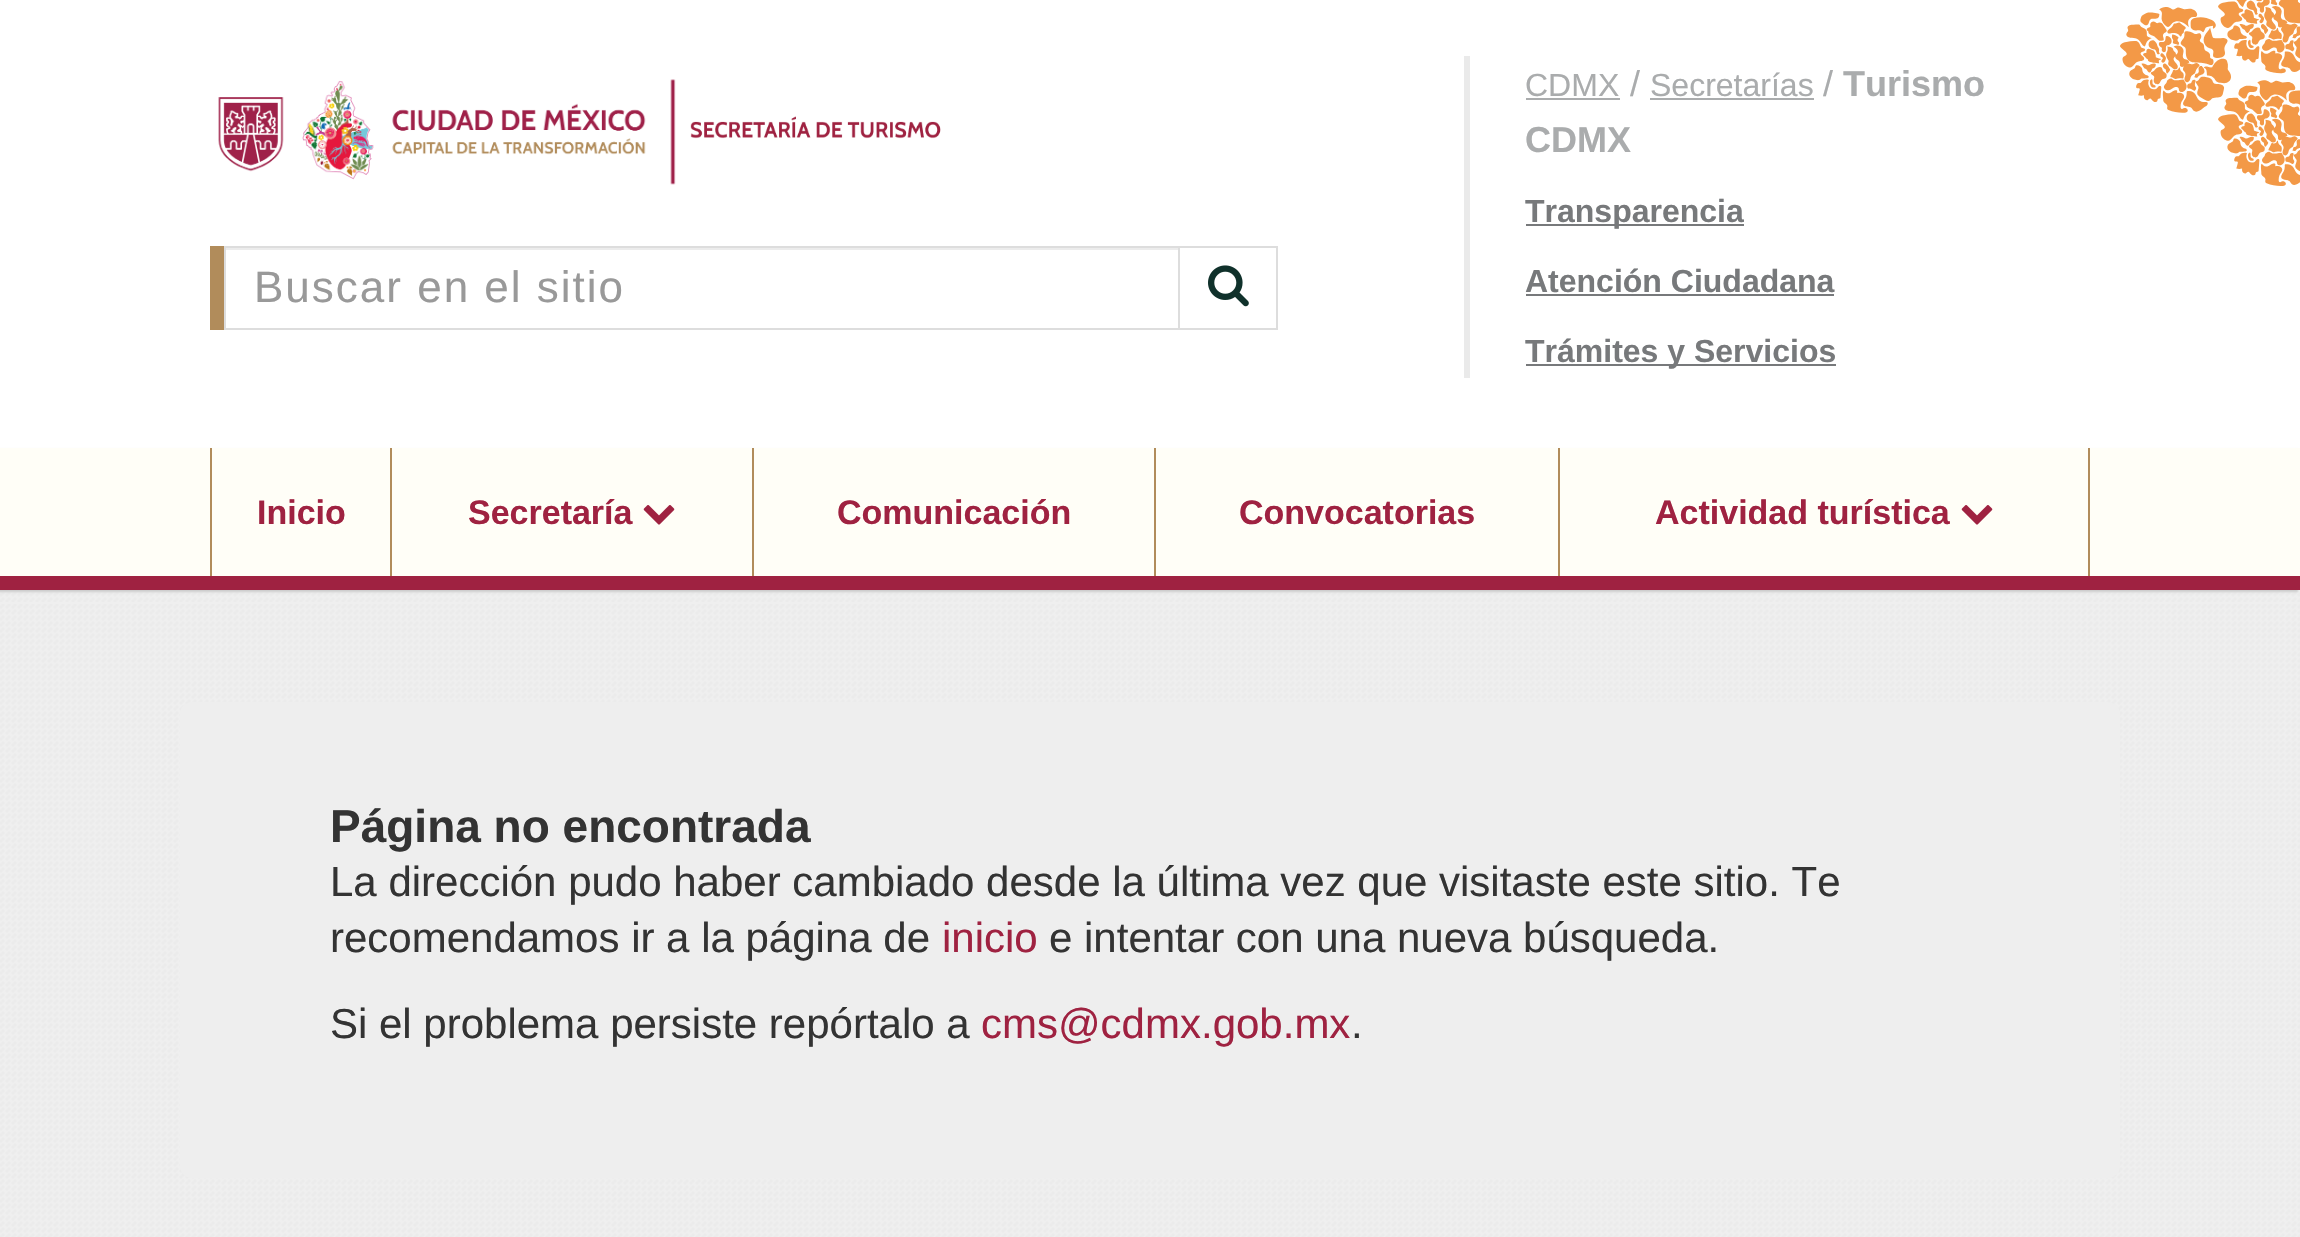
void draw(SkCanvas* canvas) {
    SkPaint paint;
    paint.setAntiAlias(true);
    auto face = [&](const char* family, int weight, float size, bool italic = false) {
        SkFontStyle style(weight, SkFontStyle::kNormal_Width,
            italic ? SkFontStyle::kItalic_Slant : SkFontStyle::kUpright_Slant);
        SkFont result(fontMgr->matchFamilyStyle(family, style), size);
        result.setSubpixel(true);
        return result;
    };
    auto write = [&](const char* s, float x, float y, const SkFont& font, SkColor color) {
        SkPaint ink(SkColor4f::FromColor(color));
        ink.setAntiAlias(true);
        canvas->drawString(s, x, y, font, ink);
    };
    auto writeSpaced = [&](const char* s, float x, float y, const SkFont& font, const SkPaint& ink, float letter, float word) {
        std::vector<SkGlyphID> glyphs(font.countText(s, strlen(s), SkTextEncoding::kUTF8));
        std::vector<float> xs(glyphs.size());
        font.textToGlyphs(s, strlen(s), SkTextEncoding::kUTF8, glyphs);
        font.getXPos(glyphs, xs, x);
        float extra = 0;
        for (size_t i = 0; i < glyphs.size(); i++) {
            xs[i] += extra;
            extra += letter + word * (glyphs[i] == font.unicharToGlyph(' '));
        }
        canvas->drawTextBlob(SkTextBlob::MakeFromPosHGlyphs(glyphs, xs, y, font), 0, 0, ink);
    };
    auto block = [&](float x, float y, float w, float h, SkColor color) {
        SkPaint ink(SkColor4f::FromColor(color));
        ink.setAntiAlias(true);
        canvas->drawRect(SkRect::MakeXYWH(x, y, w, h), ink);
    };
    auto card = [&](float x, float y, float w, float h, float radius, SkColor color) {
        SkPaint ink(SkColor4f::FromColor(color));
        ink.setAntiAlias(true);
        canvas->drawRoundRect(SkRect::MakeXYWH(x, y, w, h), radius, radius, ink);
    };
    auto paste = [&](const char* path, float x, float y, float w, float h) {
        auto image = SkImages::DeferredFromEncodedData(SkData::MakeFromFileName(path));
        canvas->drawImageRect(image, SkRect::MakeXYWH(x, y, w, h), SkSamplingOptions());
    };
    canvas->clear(SK_ColorWHITE);
    paste("pic1.png", 218, 79, 458, 106);
    paste("pic2.png", 690, 116, 251, 23);
    block(210, 246, 14, 84, SkColorSetRGB(177, 140, 91));
    block(226, 248, 952, 2, SkColorSetRGB(236, 236, 236));
    paint.setStyle(SkPaint::kStroke_Style);
    paint.setStrokeWidth(2);
    paint.setColor(SkColorSetRGB(221, 221, 221));
    canvas->drawRect(SkRect::MakeXYWH(1179, 247, 98, 82), paint);
    canvas->drawRect(SkRect::MakeXYWH(225, 247, 954, 82), paint);
    auto kFont1 = face("Liberation Sans", 400, 44);
    paint.setStyle(SkPaint::kFill_Style);
    paint.setColor(SkColorSetRGB(153, 153, 153));
    writeSpaced("Buscar en el sitio", 254, 302, kFont1, paint, 2, 0);
    paste("pic3.png", 1208, 265, 41, 42);
    block(1464, 56, 6, 322, SkColorSetRGB(234, 234, 234));
    auto kFont2 = face("Liberation Sans", 400, 32);
    write("CDMX", 1525, 96, kFont2, SkColorSetRGB(170, 172, 173));
    block(1526, 98, 94, 2, SkColorSetRGB(170, 172, 173));
    auto kFont3 = face("Liberation Sans", 400, 36);
    write("/", 1630, 96, kFont3, SkColorSetRGB(170, 172, 173));
    write("Secretarías", 1650, 96, kFont2, SkColorSetRGB(170, 172, 173));
    block(1650, 98, 164, 2, SkColorSetRGB(170, 172, 173));
    write("/", 1823, 96, kFont3, SkColorSetRGB(170, 172, 173));
    auto kFont4 = face("Liberation Sans", 700, 36);
    write("Turismo", 1843, 96, kFont4, SkColorSetRGB(170, 172, 173));
    write("CDMX", 1525, 152, kFont4, SkColorSetRGB(170, 172, 173));
    block(1526, 224, 218, 2, SkColorSetRGB(119, 121, 123));
    auto kFont5 = face("Liberation Sans", 700, 32);
    write("Transparencia", 1525, 222, kFont5, SkColorSetRGB(119, 121, 123));
    write("Atención Ciudadana", 1525, 292, kFont5, SkColorSetRGB(119, 121, 123));
    block(1526, 294, 308, 2, SkColorSetRGB(119, 121, 123));
    block(1526, 364, 310, 2, SkColorSetRGB(119, 121, 123));
    write("Trámites y Servicios", 1525, 362, kFont5, SkColorSetRGB(119, 121, 123));
    block(0, 590, 2300, 647, SkColorSetRGB(239, 239, 239));
    paste("pic4.png", 0, 592, 2300, 10);
    paint.setColor(SkColorSetRGB(204, 204, 204));
    paint.setMaskFilter(SkMaskFilter::MakeBlur(kNormal_SkBlurStyle, 1));
    canvas->drawRect(SkRect::MakeXYWH(-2, 450, 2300, 142), paint);
    paint.setMaskFilter(nullptr);
    block(0, 448, 2300, 128, SkColorSetRGB(255, 254, 247));
    block(0, 576, 2300, 14, SkColorSetRGB(159, 34, 65));
    block(210, 448, 2, 128, SkColorSetRGB(177, 140, 91));
    auto kFont6 = face("Liberation Sans", 700, 34);
    write("Inicio", 257, 524, kFont6, SkColorSetRGB(159, 34, 65));
    block(390, 448, 2, 128, SkColorSetRGB(177, 140, 91));
    write("Secretaría", 468, 524, kFont6, SkColorSetRGB(159, 34, 65));
    paste("pic5.png", 643, 505, 32, 20);
    block(752, 448, 2, 128, SkColorSetRGB(177, 140, 91));
    write("Comunicación", 837, 524, kFont6, SkColorSetRGB(159, 34, 65));
    block(1154, 448, 2, 128, SkColorSetRGB(177, 140, 91));
    write("Convocatorias", 1239, 524, kFont6, SkColorSetRGB(159, 34, 65));
    block(2088, 448, 2, 128, SkColorSetRGB(177, 140, 91));
    block(1558, 448, 2, 128, SkColorSetRGB(177, 140, 91));
    write("Actividad turística", 1655, 524, kFont6, SkColorSetRGB(159, 34, 65));
    paste("pic5.png", 1961, 505, 32, 20);
    paste("pic6.png", 2120, 0, 180, 186);
    paste("pic7.png", 0, 604, 2300, 633);
    card(180, 702, 1940, 476, 12, SkColorSetRGB(238, 238, 238));
    auto kFont7 = face("Liberation Sans", 700, 46);
    write("Página no encontrada", 330, 842, kFont7, SkColorSetRGB(51, 51, 51));
    auto kFont8 = face("Liberation Sans", 400, 42);
    write("La dirección pudo haber cambiado desde la última vez que visitaste este sitio. Te", 330, 896, kFont8, SkColorSetRGB(51, 51, 51));
    write("recomendamos ir a la página de", 330, 952, kFont8, SkColorSetRGB(51, 51, 51));
    write("inicio", 942, 952, kFont8, SkColorSetRGB(159, 34, 65));
    write("e intentar con una nueva búsqueda.", 1049, 952, kFont8, SkColorSetRGB(51, 51, 51));
    write("Si el problema persiste repórtalo a", 330, 1038, kFont8, SkColorSetRGB(51, 51, 51));
    write("cms@cdmx.gob.mx", 981, 1038, kFont8, SkColorSetRGB(159, 34, 65));
    write(".", 1351, 1038, kFont8, SkColorSetRGB(51, 51, 51));
}
